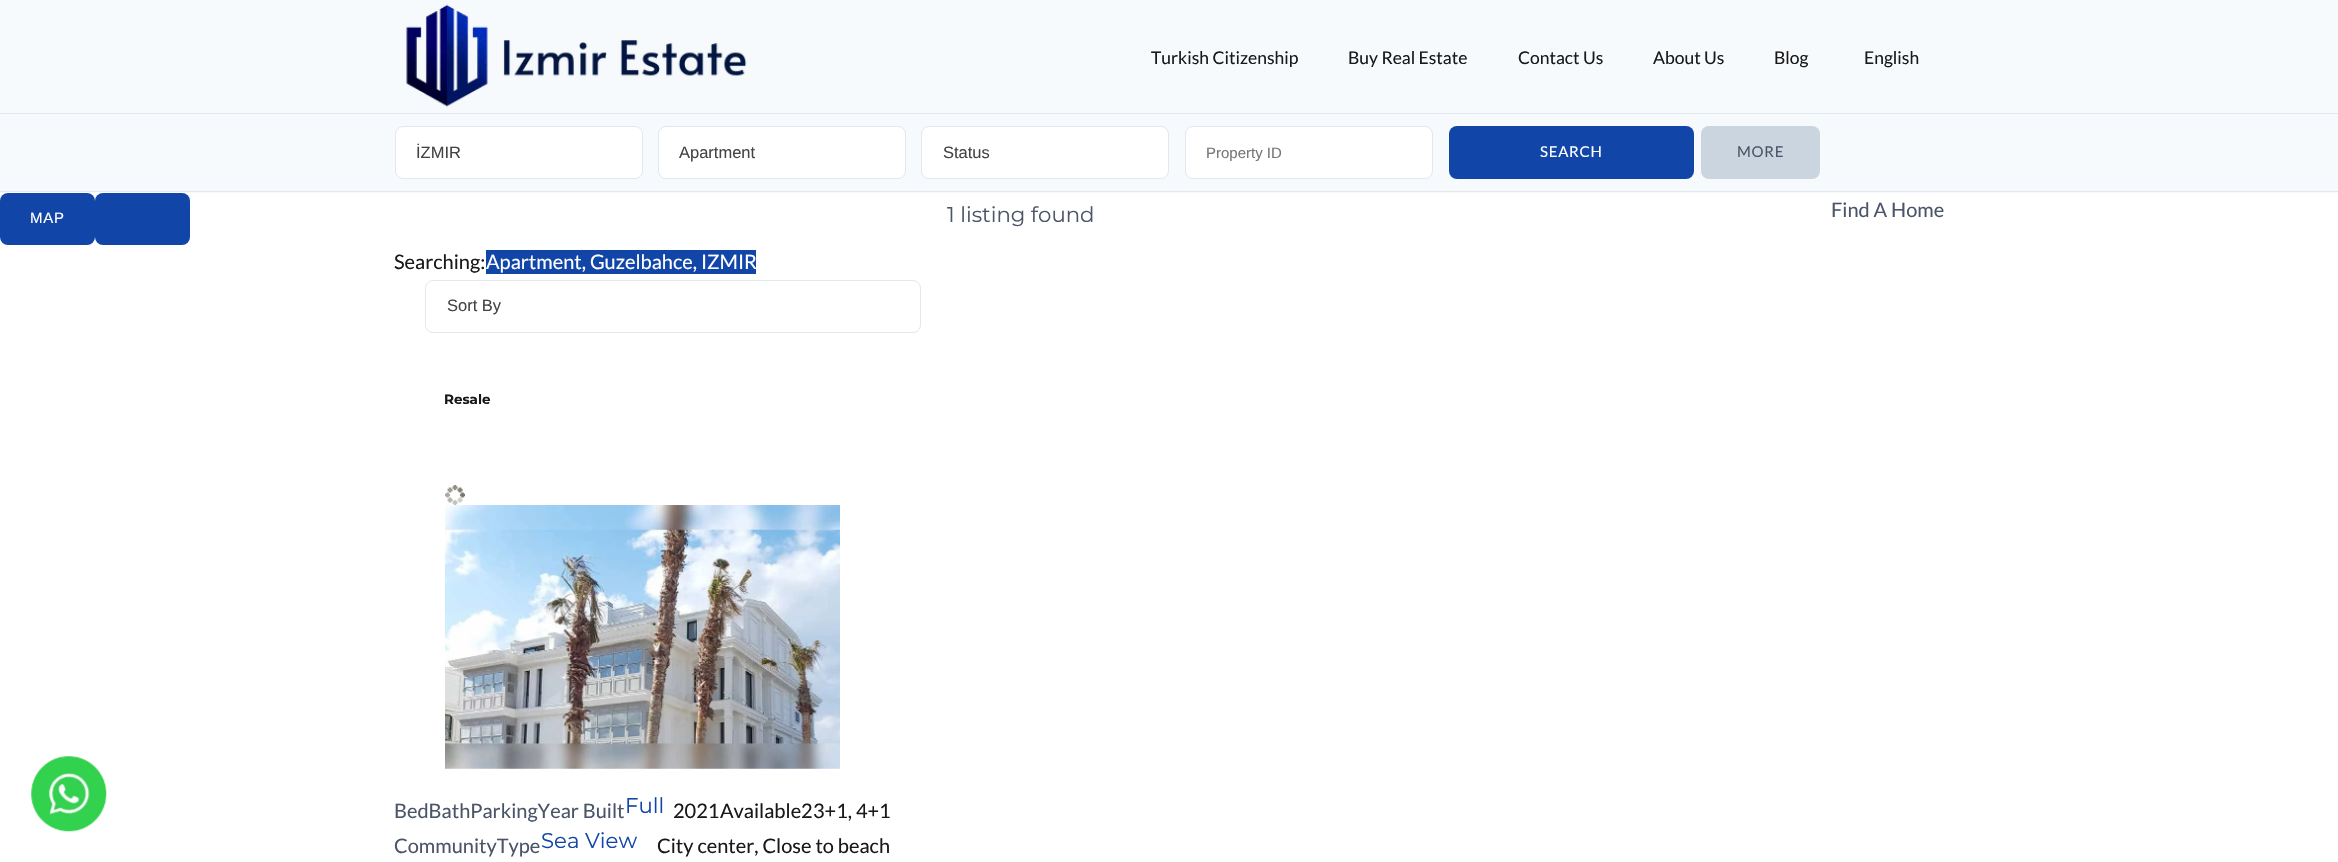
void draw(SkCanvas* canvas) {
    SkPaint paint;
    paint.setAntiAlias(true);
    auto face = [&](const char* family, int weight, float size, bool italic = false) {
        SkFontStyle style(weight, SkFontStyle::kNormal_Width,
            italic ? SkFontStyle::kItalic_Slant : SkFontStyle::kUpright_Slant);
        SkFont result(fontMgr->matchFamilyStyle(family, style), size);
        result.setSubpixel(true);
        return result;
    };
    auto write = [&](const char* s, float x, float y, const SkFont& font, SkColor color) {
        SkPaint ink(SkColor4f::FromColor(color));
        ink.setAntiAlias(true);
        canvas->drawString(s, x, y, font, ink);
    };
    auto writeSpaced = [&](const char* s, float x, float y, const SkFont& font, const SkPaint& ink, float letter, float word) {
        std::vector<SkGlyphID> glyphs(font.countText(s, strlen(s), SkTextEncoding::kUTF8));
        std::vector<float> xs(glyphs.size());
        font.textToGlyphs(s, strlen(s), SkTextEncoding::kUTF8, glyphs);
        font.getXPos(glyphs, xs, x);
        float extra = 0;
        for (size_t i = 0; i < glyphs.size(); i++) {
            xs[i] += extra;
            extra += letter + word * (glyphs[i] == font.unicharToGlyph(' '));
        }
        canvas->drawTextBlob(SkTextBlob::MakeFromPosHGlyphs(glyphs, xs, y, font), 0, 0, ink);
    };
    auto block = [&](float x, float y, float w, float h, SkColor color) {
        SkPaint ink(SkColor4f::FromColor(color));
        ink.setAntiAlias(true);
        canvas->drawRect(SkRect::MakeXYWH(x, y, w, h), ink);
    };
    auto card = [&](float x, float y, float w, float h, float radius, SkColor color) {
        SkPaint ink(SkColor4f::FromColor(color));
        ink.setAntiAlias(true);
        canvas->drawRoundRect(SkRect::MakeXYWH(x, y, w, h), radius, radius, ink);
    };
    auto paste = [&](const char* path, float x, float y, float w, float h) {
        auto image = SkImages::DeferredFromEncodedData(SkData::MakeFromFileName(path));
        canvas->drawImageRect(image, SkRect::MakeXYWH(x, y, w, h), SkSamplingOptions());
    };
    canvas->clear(SK_ColorWHITE);
    block(0, 0, 2338, 113, SkColorSetRGB(247, 250, 252));
    paste("pic1.png", 406, 4, 341, 103);
    auto kFont1 = face("Lato", 400, 17.5f);
    write("Turkish Citizenship", 1151, 64, kFont1, SkColorSetRGB(25, 25, 25));
    write("Buy Real Estate", 1348, 64, kFont1, SkColorSetRGB(25, 25, 25));
    write("Contact Us", 1518, 64, kFont1, SkColorSetRGB(25, 25, 25));
    write("About Us", 1653, 64, kFont1, SkColorSetRGB(25, 25, 25));
    write("Blog", 1774, 64, kFont1, SkColorSetRGB(25, 25, 25));
    write("English", 1864, 64, kFont1, SkColorSetRGB(25, 25, 25));
    block(0, 114, 2338, 79, SkColorSetRGB(247, 250, 252));
    block(0, 113, 2338, 1, SkColorSetRGB(226, 232, 240));
    block(0, 191, 2338, 1, SkColorSetRGB(226, 232, 240));
    paint.setColor(SK_ColorWHITE);
    canvas->drawRoundRect(SkRect::MakeXYWH(395.5f, 126.5f, 247, 52), 7.5f, 7.5f, paint);
    paint.setStyle(SkPaint::kStroke_Style);
    paint.setStrokeWidth(1);
    paint.setColor(SkColorSetRGB(226, 232, 240));
    canvas->drawRoundRect(SkRect::MakeXYWH(395.5f, 126.5f, 247, 52), 7.5f, 7.5f, paint);
    auto kFont2 = face("Liberation Sans", 400, 16.5f);
    write("İZMIR", 416, 158, kFont2, SkColorSetRGB(68, 68, 68));
    paint.setStyle(SkPaint::kFill_Style);
    paint.setColor(SK_ColorWHITE);
    canvas->drawRoundRect(SkRect::MakeXYWH(658.5f, 126.5f, 247, 52), 7.5f, 7.5f, paint);
    paint.setStyle(SkPaint::kStroke_Style);
    paint.setColor(SkColorSetRGB(226, 232, 240));
    canvas->drawRoundRect(SkRect::MakeXYWH(658.5f, 126.5f, 247, 52), 7.5f, 7.5f, paint);
    write("Apartment", 679, 158, kFont2, SkColorSetRGB(68, 68, 68));
    paint.setStyle(SkPaint::kFill_Style);
    paint.setColor(SK_ColorWHITE);
    canvas->drawRoundRect(SkRect::MakeXYWH(921.5f, 126.5f, 247, 52), 7.5f, 7.5f, paint);
    paint.setStyle(SkPaint::kStroke_Style);
    paint.setColor(SkColorSetRGB(226, 232, 240));
    canvas->drawRoundRect(SkRect::MakeXYWH(921.5f, 126.5f, 247, 52), 7.5f, 7.5f, paint);
    write("Status", 943, 158, kFont2, SkColorSetRGB(68, 68, 68));
    paint.setStyle(SkPaint::kFill_Style);
    paint.setColor(SK_ColorWHITE);
    canvas->drawRoundRect(SkRect::MakeXYWH(1185.5f, 126.5f, 247, 52), 7.5f, 7.5f, paint);
    paint.setStyle(SkPaint::kStroke_Style);
    paint.setColor(SkColorSetRGB(226, 232, 240));
    canvas->drawRoundRect(SkRect::MakeXYWH(1185.5f, 126.5f, 247, 52), 7.5f, 7.5f, paint);
    canvas->save();
    canvas->clipRect(SkRect::MakeXYWH(1206, 144, 205, 17));
    auto kFont3 = face("Liberation Sans", 400, 15);
    write("Property ID", 1206, 158, kFont3, SkColorSetRGB(119, 119, 119));
    canvas->restore();
    card(1449, 126, 245, 53, 8, SkColorSetRGB(17, 70, 168));
    auto kFont4 = face("Lato", 400, 15);
    paint.setStyle(SkPaint::kFill_Style);
    paint.setColor(SK_ColorWHITE);
    writeSpaced("SEARCH", 1540, 157, kFont4, paint, 0.75f, 0);
    card(1701, 126, 119, 53, 8, SkColorSetRGB(203, 213, 224));
    paint.setColor(SkColorSetRGB(74, 85, 104));
    writeSpaced("MORE", 1737, 157, kFont4, paint, 0.75f, 0);
    card(0, 193, 95, 52, 8, SkColorSetRGB(17, 70, 168));
    paint.setColor(SK_ColorWHITE);
    writeSpaced("MAP", 30, 223, kFont3, paint, 0.75f, 0);
    card(95, 193, 95, 52, 8, SkColorSetRGB(17, 70, 168));
    auto kFont5 = face("Montserrat", 400, 21.25f);
    write("1 listing found", 947, 222, kFont5, SkColorSetRGB(74, 85, 104));
    auto kFont6 = face("Lato", 400, 20);
    write("Find A Home", 1831, 217, kFont6, SkColorSetRGB(74, 85, 104));
    write("Searching:", 394, 269, kFont6, SkColorSetRGB(25, 25, 25));
    block(486, 250, 270, 24, SkColorSetRGB(17, 70, 168));
    write("Apartment, Guzelbahce, IZMIR", 486, 269, kFont6, SK_ColorWHITE);
    paint.setStyle(SkPaint::kStroke_Style);
    paint.setColor(SkColorSetRGB(226, 232, 240));
    canvas->drawRoundRect(SkRect::MakeXYWH(425.5f, 280.5f, 495, 52), 7.5f, 7.5f, paint);
    write("Sort By", 447, 311, kFont2, SkColorSetRGB(68, 68, 68));
    auto kFont7 = face("Montserrat", 700, 13.5f);
    write("Resale", 444, 404, kFont7, SkColorSetRGB(25, 25, 25));
    paste("pic2.png", 445, 485, 20, 20);
    paste("pic3.png", 445, 505, 395, 264);
    write("Full", 625, 813, kFont5, SkColorSetRGB(17, 70, 168));
    write("Sea View", 541, 848, kFont5, SkColorSetRGB(17, 70, 168));
    write("BedBathParkingYear Built", 394, 818, kFont6, SkColorSetRGB(74, 85, 104));
    write("3+1, 4+1", 813, 818, kFont6, SkColorSetRGB(25, 25, 25));
    write("2021", 673, 818, kFont6, SkColorSetRGB(25, 25, 25));
    write("Available", 720, 818, kFont6, SkColorSetRGB(25, 25, 25));
    write("2", 801, 818, kFont6, SkColorSetRGB(25, 25, 25));
    write("CommunityType", 394, 853, kFont6, SkColorSetRGB(74, 85, 104));
    write("City center, Close to beach", 657, 853, kFont6, SkColorSetRGB(25, 25, 25));
    paste("pic4.png", 31, 756, 76, 76);
}
